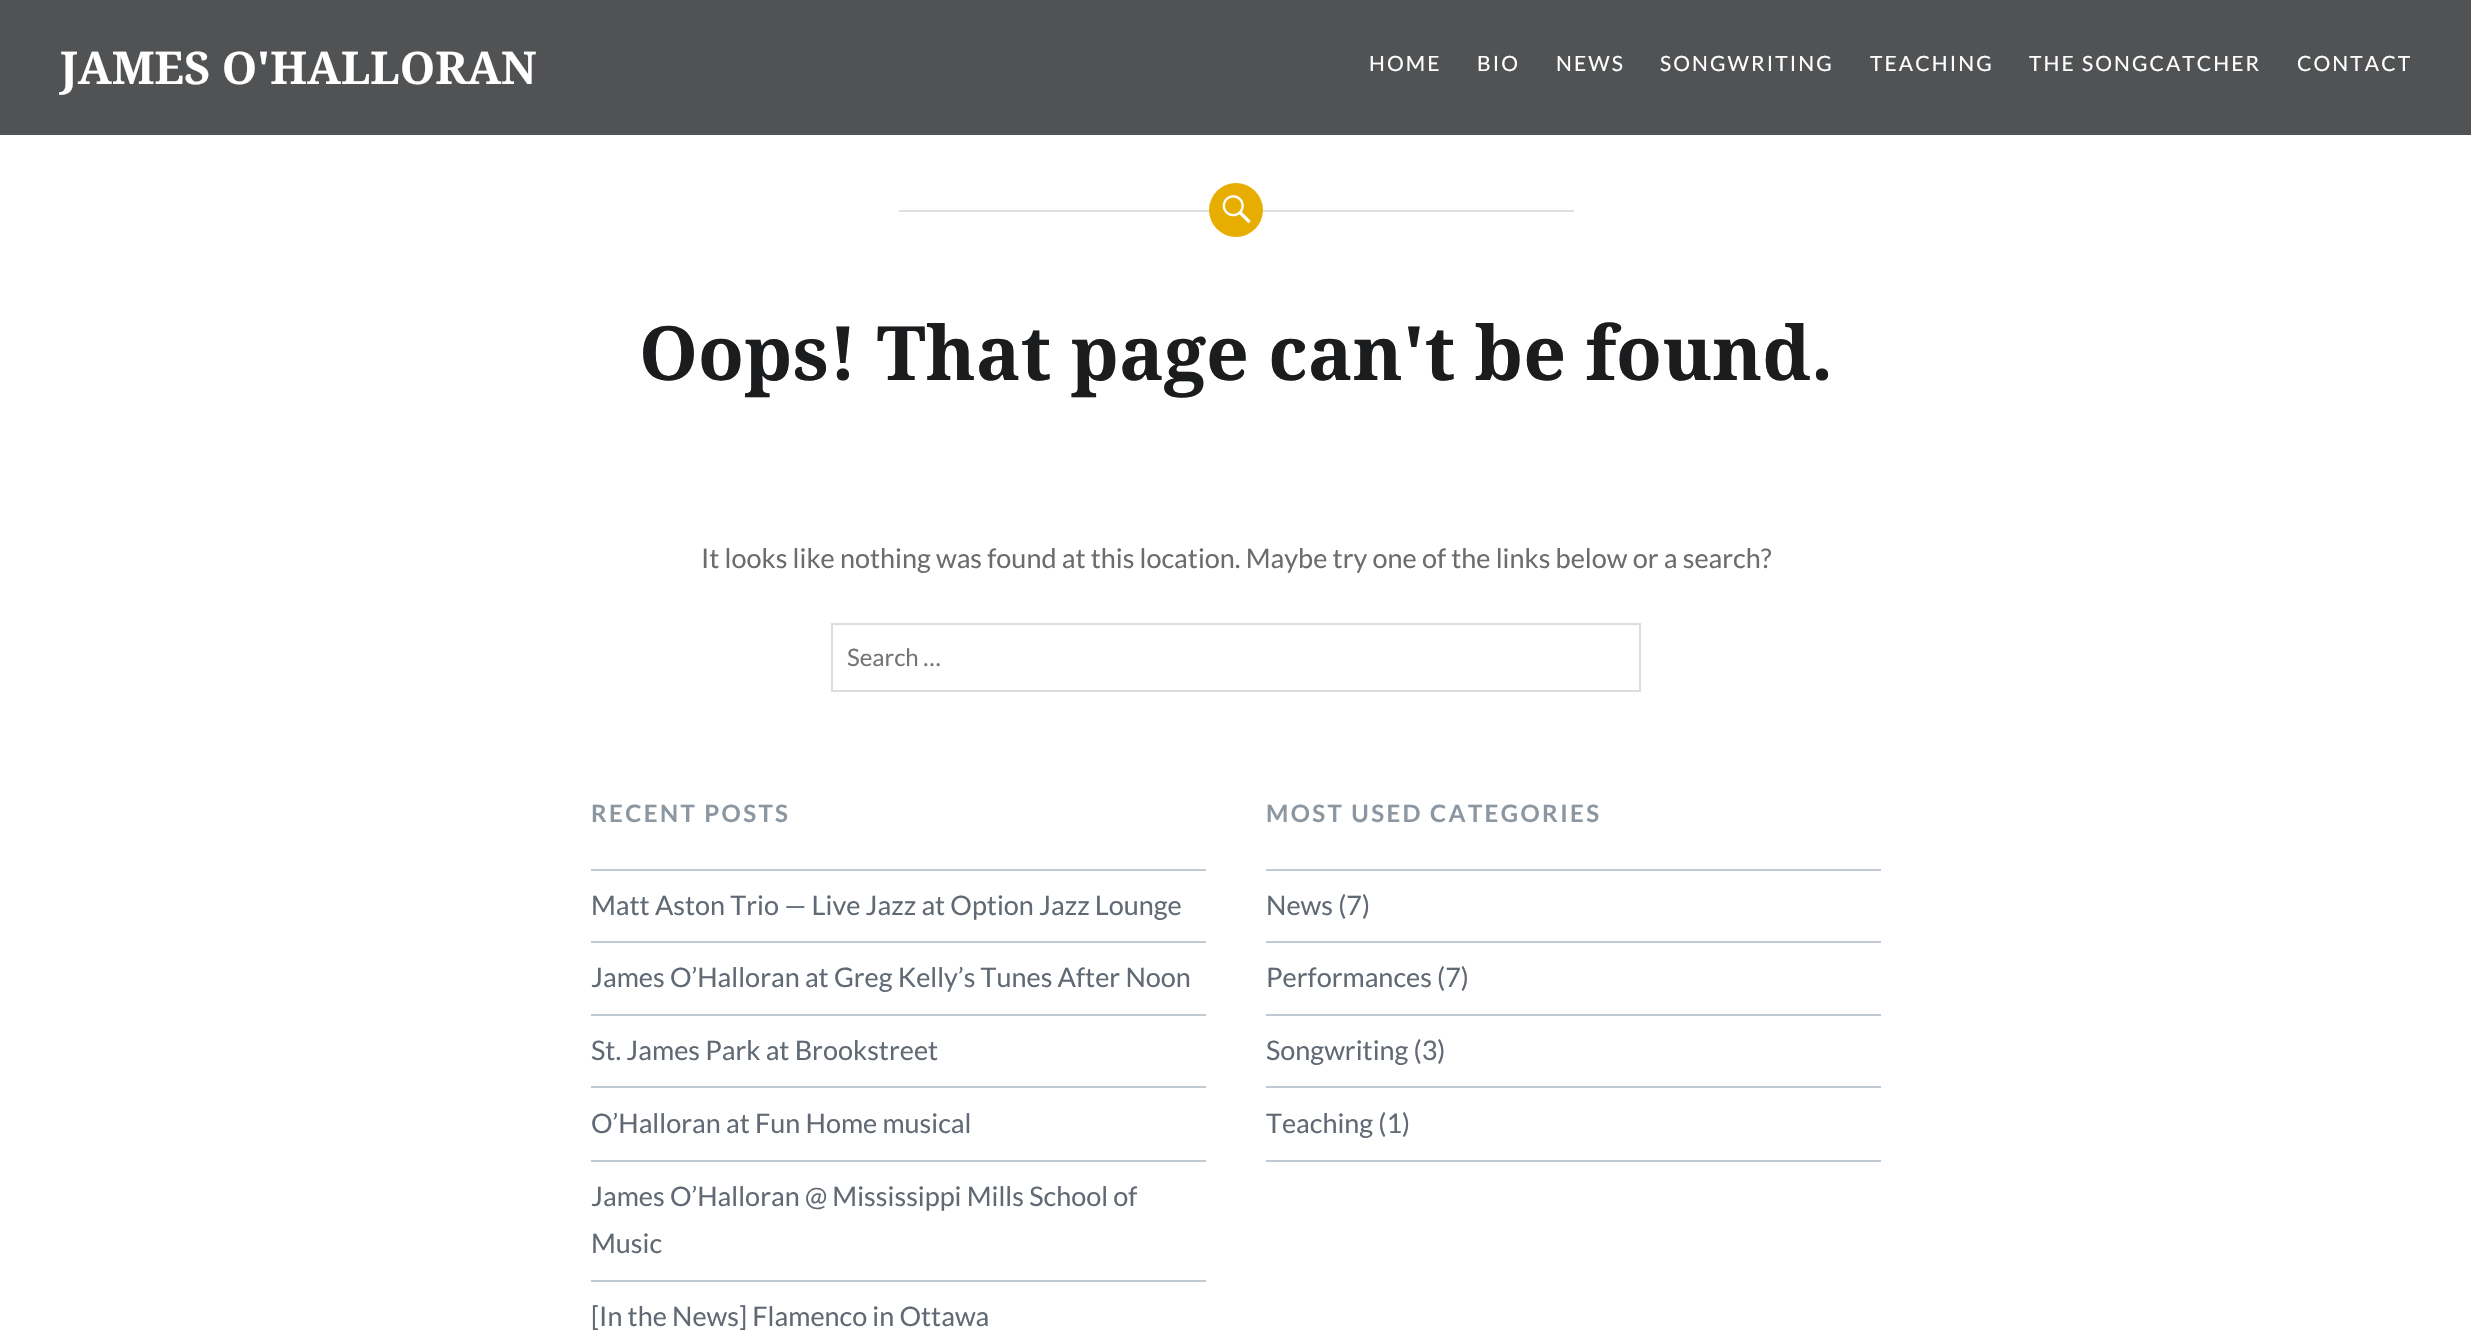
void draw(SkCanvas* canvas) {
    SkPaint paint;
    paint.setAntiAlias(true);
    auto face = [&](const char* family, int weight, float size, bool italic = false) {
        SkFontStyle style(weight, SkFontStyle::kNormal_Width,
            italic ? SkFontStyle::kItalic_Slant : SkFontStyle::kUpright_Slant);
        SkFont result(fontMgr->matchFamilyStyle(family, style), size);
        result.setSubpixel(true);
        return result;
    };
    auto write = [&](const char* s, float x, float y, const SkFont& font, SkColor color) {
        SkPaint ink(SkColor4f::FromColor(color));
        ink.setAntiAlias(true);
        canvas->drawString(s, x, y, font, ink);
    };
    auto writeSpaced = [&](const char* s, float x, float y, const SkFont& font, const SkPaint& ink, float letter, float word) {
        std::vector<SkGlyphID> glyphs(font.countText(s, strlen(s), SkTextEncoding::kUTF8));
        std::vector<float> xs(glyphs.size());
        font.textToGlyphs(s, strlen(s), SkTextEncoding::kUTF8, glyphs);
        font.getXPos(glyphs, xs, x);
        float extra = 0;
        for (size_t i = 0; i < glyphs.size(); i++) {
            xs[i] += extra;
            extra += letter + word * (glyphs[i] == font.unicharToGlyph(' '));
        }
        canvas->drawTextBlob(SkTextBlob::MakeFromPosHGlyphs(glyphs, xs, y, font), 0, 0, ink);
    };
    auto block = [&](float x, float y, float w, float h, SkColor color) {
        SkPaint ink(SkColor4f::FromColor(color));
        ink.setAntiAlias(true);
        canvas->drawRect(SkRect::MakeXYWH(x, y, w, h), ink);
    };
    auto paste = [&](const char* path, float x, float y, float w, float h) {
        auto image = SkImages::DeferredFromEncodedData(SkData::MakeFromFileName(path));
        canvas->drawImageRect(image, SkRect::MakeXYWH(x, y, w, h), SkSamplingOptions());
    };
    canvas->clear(SK_ColorWHITE);
    block(0, 0, 2471, 135, SkColorSetRGB(80, 82, 84));
    auto kFont1 = face("Noto Serif", 700, 45);
    write("JAMES O'HALLORAN", 60, 84, kFont1, SK_ColorWHITE);
    auto kFont2 = face("Lato", 400, 21);
    paint.setColor(SK_ColorWHITE);
    writeSpaced("HOME", 1369, 71, kFont2, paint, 2.1f, 0);
    writeSpaced("BIO", 1477, 71, kFont2, paint, 2.1f, 0);
    writeSpaced("NEWS", 1556, 71, kFont2, paint, 2.1f, 0);
    writeSpaced("SONGWRITING", 1660, 71, kFont2, paint, 2.1f, 0);
    writeSpaced("TEACHING", 1870, 71, kFont2, paint, 2.1f, 0);
    writeSpaced("THE SONGCATCHER", 2029, 71, kFont2, paint, 2.1f, 0);
    writeSpaced("CONTACT", 2297, 71, kFont2, paint, 2.1f, 0);
    block(899, 210, 675, 2, SkColorSetRGB(224, 224, 224));
    paint.setColor(SkColorSetRGB(231, 174, 1));
    canvas->drawCircle(1236, 210, 27, paint);
    paste("pic1.png", 1222, 195, 29, 29);
    auto kFont3 = face("Noto Serif", 700, 75);
    write("Oops! That page can't be found.", 639, 380, kFont3, SkColorSetRGB(26, 28, 30));
    auto kFont4 = face("Lato", 400, 27);
    write("It looks like nothing was found at this location. Maybe try one of the links below or a search?", 701, 568, kFont4, SkColorSetRGB(106, 108, 110));
    paint.setStyle(SkPaint::kStroke_Style);
    paint.setStrokeWidth(2);
    paint.setColor(SkColorSetRGB(221, 221, 221));
    canvas->drawRect(SkRect::MakeXYWH(832, 624, 808, 67), paint);
    auto kFont5 = face("Lato", 400, 24);
    write("Search …", 847, 666, kFont5, SkColorSetRGB(117, 117, 117));
    auto kFont6 = face("Lato", 700, 24);
    paint.setStyle(SkPaint::kFill_Style);
    paint.setColor(SkColorSetRGB(140, 151, 162));
    writeSpaced("RECENT POSTS", 591, 822, kFont6, paint, 2.4f, 0);
    block(591, 869, 615, 2, SkColorSetRGB(192, 201, 211));
    block(591, 941, 615, 2, SkColorSetRGB(192, 201, 211));
    write("Matt Aston Trio — Live Jazz at Option Jazz Lounge", 591, 915, kFont4, SkColorSetRGB(97, 106, 116));
    block(591, 1014, 615, 2, SkColorSetRGB(192, 201, 211));
    write("James O’Halloran at Greg Kelly’s Tunes After Noon", 591, 987, kFont4, SkColorSetRGB(97, 106, 116));
    block(591, 1086, 615, 2, SkColorSetRGB(192, 201, 211));
    write("St. James Park at Brookstreet", 591, 1060, kFont4, SkColorSetRGB(97, 106, 116));
    block(591, 1160, 615, 2, SkColorSetRGB(192, 201, 211));
    write("O’Halloran at Fun Home musical", 591, 1133, kFont4, SkColorSetRGB(97, 106, 116));
    block(591, 1280, 615, 2, SkColorSetRGB(192, 201, 211));
    write("James O’Halloran @ Mississippi Mills School of", 591, 1206, kFont4, SkColorSetRGB(97, 106, 116));
    write("Music", 591, 1253, kFont4, SkColorSetRGB(97, 106, 116));
    write("[In the News] Flamenco in Ottawa", 591, 1326, kFont4, SkColorSetRGB(97, 106, 116));
    writeSpaced("MOST USED CATEGORIES", 1266, 822, kFont6, paint, 2.4f, 0);
    block(1266, 869, 615, 2, SkColorSetRGB(192, 201, 211));
    block(1266, 941, 615, 2, SkColorSetRGB(192, 201, 211));
    write("News (7)", 1266, 915, kFont4, SkColorSetRGB(97, 106, 116));
    block(1266, 1014, 615, 2, SkColorSetRGB(192, 201, 211));
    write("Performances (7)", 1266, 987, kFont4, SkColorSetRGB(97, 106, 116));
    block(1266, 1086, 615, 2, SkColorSetRGB(192, 201, 211));
    write("Songwriting (3)", 1266, 1060, kFont4, SkColorSetRGB(97, 106, 116));
    block(1266, 1160, 615, 2, SkColorSetRGB(192, 201, 211));
    write("Teaching (1)", 1266, 1133, kFont4, SkColorSetRGB(97, 106, 116));
}
